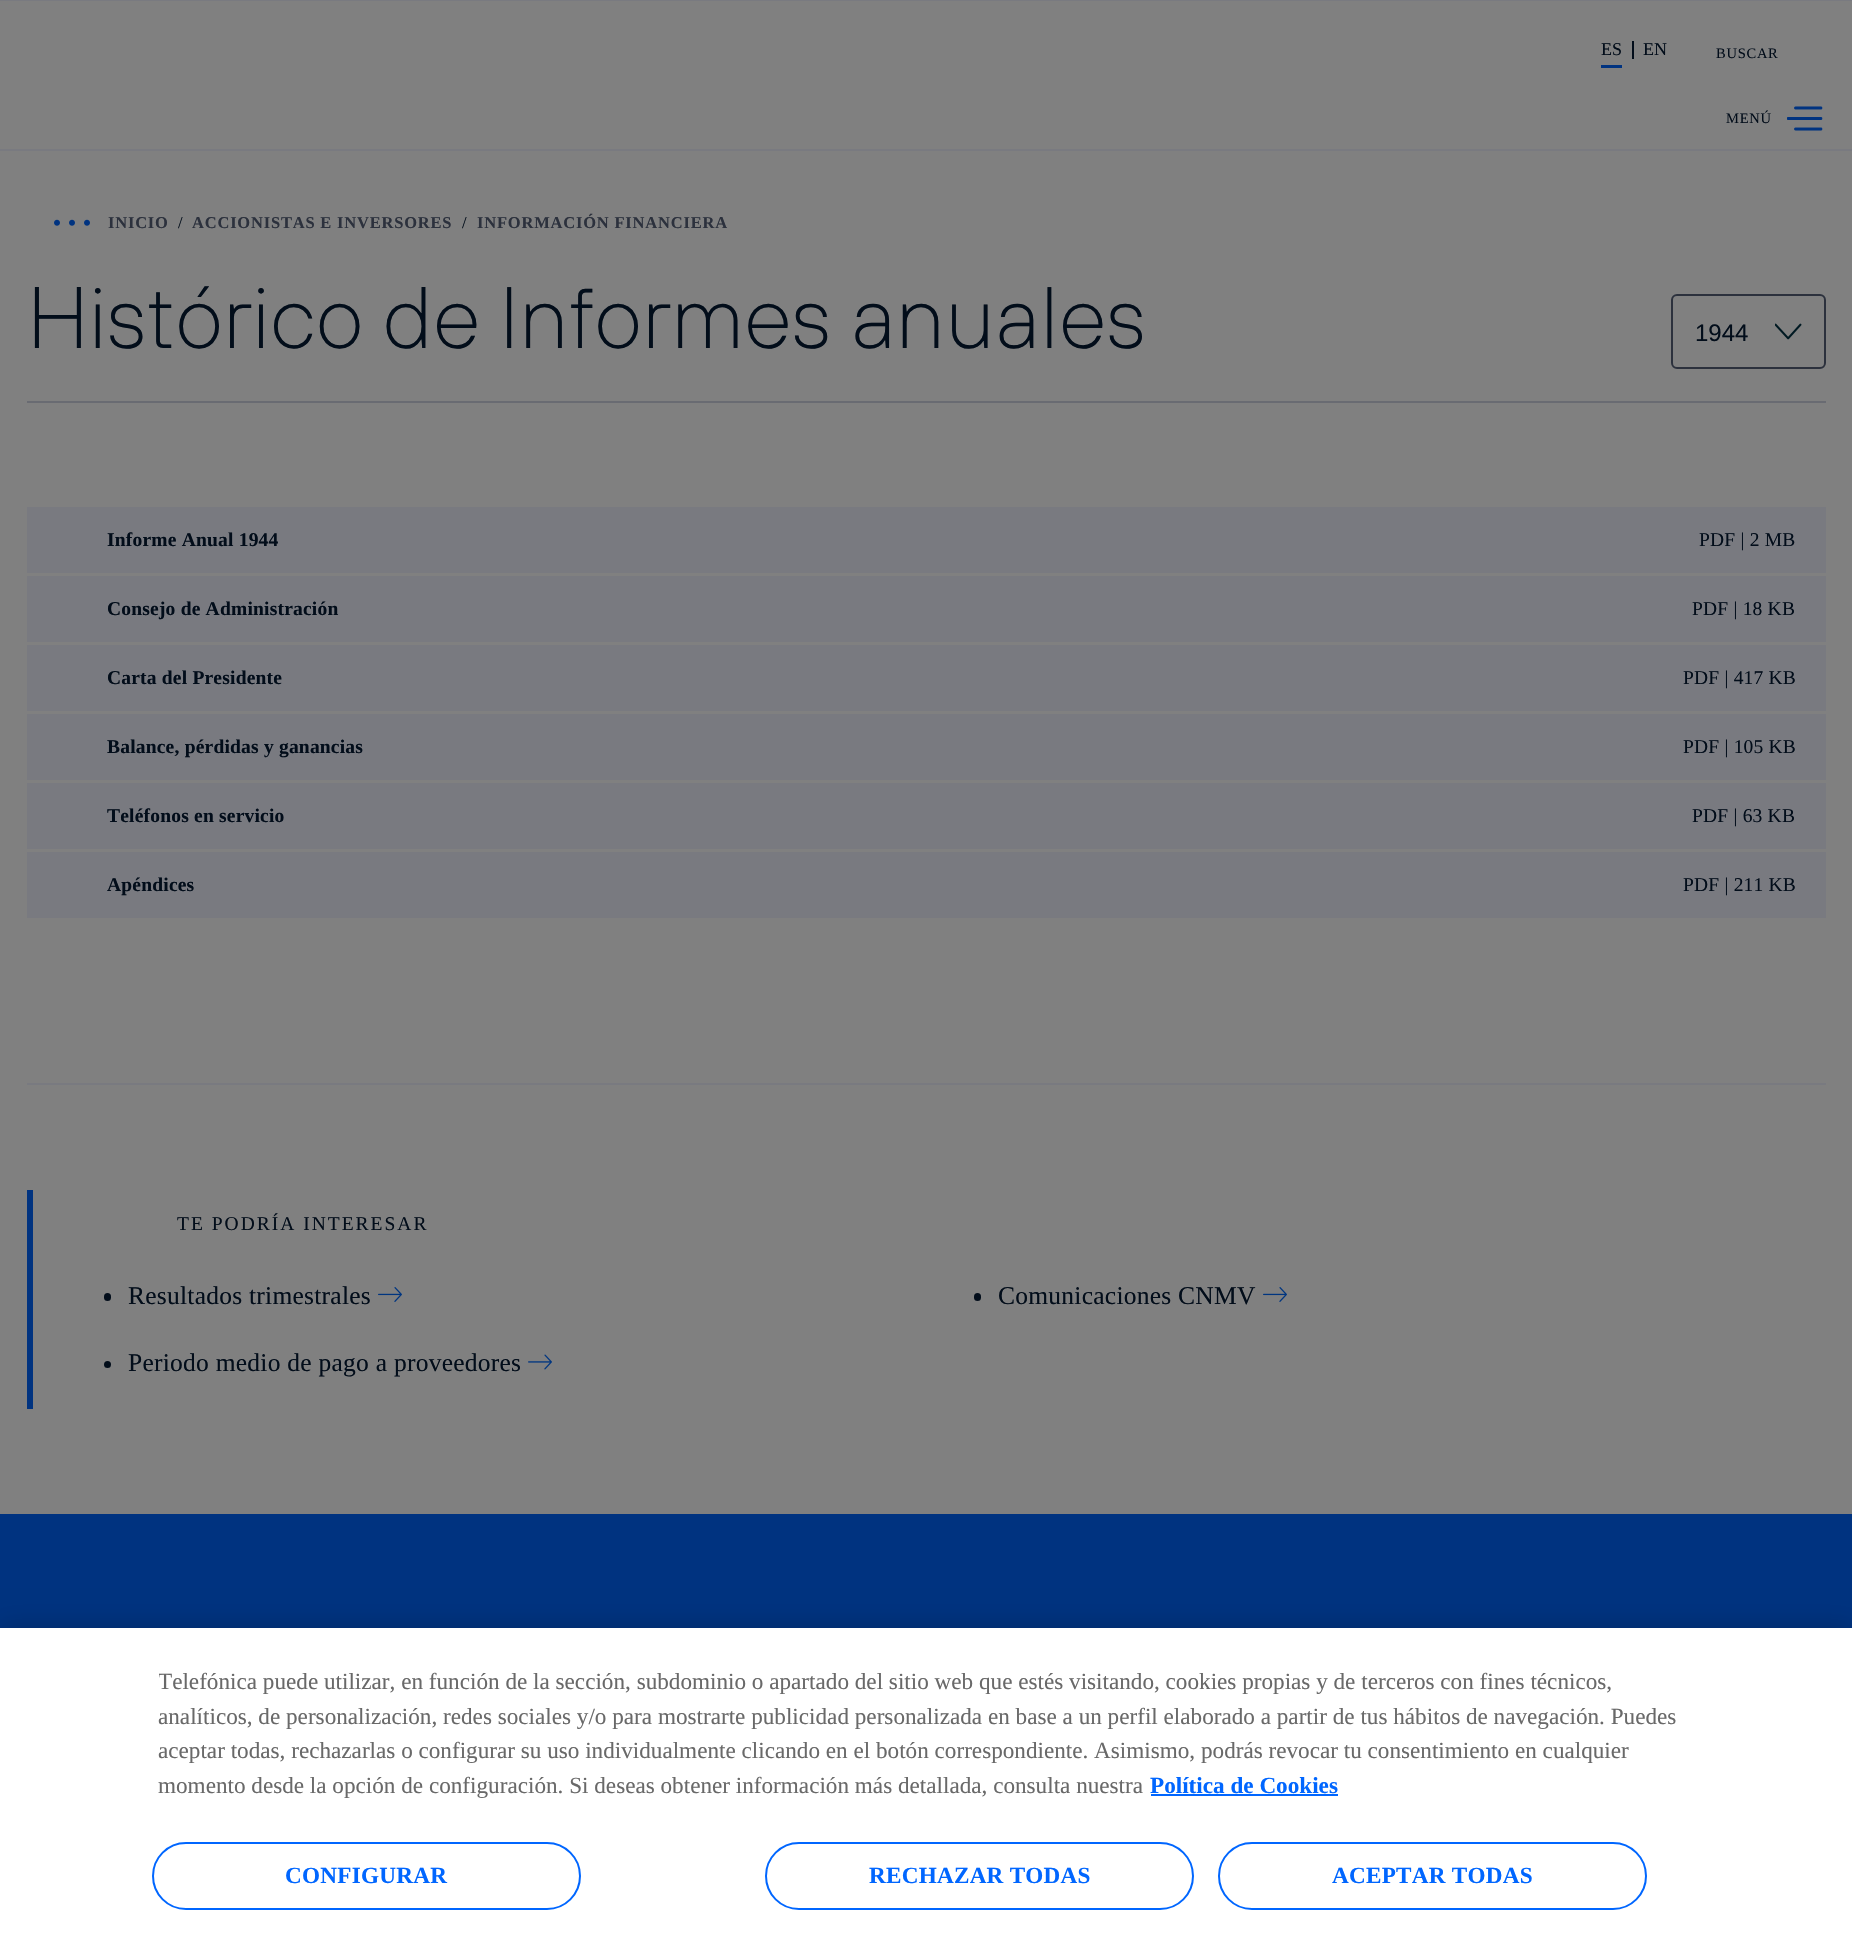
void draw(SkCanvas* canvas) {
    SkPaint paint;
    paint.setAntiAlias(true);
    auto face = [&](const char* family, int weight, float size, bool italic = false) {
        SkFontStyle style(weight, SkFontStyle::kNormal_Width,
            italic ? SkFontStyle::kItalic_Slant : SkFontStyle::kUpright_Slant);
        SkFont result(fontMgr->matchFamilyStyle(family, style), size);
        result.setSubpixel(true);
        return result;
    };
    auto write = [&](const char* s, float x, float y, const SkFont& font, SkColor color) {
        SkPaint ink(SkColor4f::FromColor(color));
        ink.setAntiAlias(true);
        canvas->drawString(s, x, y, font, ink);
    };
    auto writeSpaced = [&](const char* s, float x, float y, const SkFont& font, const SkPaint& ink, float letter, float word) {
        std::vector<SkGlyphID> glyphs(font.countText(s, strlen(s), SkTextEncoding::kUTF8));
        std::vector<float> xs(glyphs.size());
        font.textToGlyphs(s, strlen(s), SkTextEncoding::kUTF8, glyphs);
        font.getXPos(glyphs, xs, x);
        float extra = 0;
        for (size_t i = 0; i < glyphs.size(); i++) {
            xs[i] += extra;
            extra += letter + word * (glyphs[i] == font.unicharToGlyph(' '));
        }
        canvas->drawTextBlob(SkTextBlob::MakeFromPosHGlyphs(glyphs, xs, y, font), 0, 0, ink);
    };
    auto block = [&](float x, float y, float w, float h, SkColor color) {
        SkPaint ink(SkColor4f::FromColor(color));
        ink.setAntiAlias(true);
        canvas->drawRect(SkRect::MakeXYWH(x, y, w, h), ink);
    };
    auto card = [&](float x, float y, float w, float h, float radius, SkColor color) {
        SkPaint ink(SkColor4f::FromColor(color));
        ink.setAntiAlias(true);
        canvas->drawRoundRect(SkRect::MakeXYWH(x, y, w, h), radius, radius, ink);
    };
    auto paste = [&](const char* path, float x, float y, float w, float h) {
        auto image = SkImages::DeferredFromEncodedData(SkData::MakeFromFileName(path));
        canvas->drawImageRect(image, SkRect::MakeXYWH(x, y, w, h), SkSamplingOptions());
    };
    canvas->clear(SkColorSetRGB(128, 128, 128));
    block(0, 149, 1852, 2, SkColorSetRGB(121, 122, 128));
    block(0, 0, 1852, 1, SkColorSetRGB(121, 122, 128));
    block(1601, 65, 21, 3, SkColorSetRGB(0, 51, 128));
    auto kFont1 = face("Liberation Serif", 400, 18);
    write("ES", 1601, 55, kFont1, SkColorSetRGB(2, 13, 26));
    block(1632, 41, 2, 18, SkColorSetRGB(2, 13, 26));
    write("EN", 1643, 55, kFont1, SkColorSetRGB(2, 13, 26));
    auto kFont2 = face("Liberation Serif", 400, 14.5f);
    paint.setColor(SkColorSetRGB(2, 13, 26));
    writeSpaced("BUSCAR", 1716, 58, kFont2, paint, 0.75f, 0);
    paste("pic1.png", 1787, 106, 36, 25);
    writeSpaced("MENÚ", 1726, 123, kFont2, paint, 0.75f, 0);
    paste("pic2.png", 54, 219, 36, 7);
    auto kFont3 = face("Liberation Serif", 700, 16.5f);
    paint.setColor(SkColorSetRGB(44, 49, 61));
    writeSpaced("INICIO", 108, 228, kFont3, paint, 0.8f, 0);
    auto kFont4 = face("Liberation Serif", 400, 16.5f);
    paint.setColor(SkColorSetRGB(2, 13, 26));
    writeSpaced("/", 178, 228, kFont4, paint, 0.8f, 0);
    paint.setColor(SkColorSetRGB(44, 49, 61));
    writeSpaced("ACCIONISTAS E INVERSORES", 192, 228, kFont3, paint, 0.8f, 0);
    paint.setColor(SkColorSetRGB(2, 13, 26));
    writeSpaced("/", 462, 228, kFont4, paint, 0.8f, 0);
    paint.setColor(SkColorSetRGB(44, 49, 61));
    writeSpaced("INFORMACIÓN FINANCIERA", 477, 228, kFont3, paint, 0.8f, 0);
    block(27, 401, 1799, 2, SkColorSetRGB(105, 107, 114));
    auto kFont5 = face("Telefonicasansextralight", 200, 87);
    write("Histórico de Informes anuales", 27, 348, kFont5, SkColorSetRGB(2, 13, 26));
    paste("pic3.png", 1775, 323, 27, 17);
    paint.setStyle(SkPaint::kStroke_Style);
    paint.setStrokeWidth(2);
    canvas->drawRoundRect(SkRect::MakeXYWH(1672, 295, 153, 73), 5, 5, paint);
    auto kFont6 = face("Liberation Sans", 400, 24);
    write("1944", 1695, 341, kFont6, SkColorSetRGB(2, 13, 26));
    block(27, 507, 1799, 66, SkColorSetRGB(121, 122, 128));
    auto kFont7 = face("Liberation Serif", 700, 19.5f);
    paint.setStyle(SkPaint::kFill_Style);
    paint.setColor(SkColorSetRGB(2, 13, 26));
    writeSpaced("Informe Anual 1944", 107, 546, kFont7, paint, 0.2f, 0);
    auto kFont8 = face("Liberation Serif", 400, 19.5f);
    writeSpaced("PDF | 2 MB", 1699, 546, kFont8, paint, 0.2f, 0);
    block(27, 576, 1799, 66, SkColorSetRGB(121, 122, 128));
    writeSpaced("Consejo de Administración", 107, 615, kFont7, paint, 0.2f, 0);
    writeSpaced("PDF | 18 KB", 1692, 615, kFont8, paint, 0.2f, 0);
    block(27, 645, 1799, 66, SkColorSetRGB(121, 122, 128));
    writeSpaced("Carta del Presidente", 107, 684, kFont7, paint, 0.2f, 0);
    writeSpaced("PDF | 417 KB", 1683, 684, kFont8, paint, 0.2f, 0);
    block(27, 714, 1799, 66, SkColorSetRGB(121, 122, 128));
    writeSpaced("Balance, pérdidas y ganancias", 107, 753, kFont7, paint, 0.2f, 0);
    writeSpaced("PDF | 105 KB", 1683, 753, kFont8, paint, 0.2f, 0);
    block(27, 783, 1799, 66, SkColorSetRGB(121, 122, 128));
    writeSpaced("Teléfonos en servicio", 107, 822, kFont7, paint, 0.2f, 0);
    writeSpaced("PDF | 63 KB", 1692, 822, kFont8, paint, 0.2f, 0);
    block(27, 852, 1799, 66, SkColorSetRGB(121, 122, 128));
    writeSpaced("Apéndices", 107, 891, kFont7, paint, 0.2f, 0);
    writeSpaced("PDF | 211 KB", 1683, 891, kFont8, paint, 0.2f, 0);
    block(27, 1083, 1799, 2, SkColorSetRGB(121, 122, 128));
    block(27, 1190, 6, 219, SkColorSetRGB(0, 51, 128));
    writeSpaced("TE PODRÍA INTERESAR", 177, 1230, kFont8, paint, 2, 0);
    card(104, 1293, 7, 8, 3.5f, SkColorSetRGB(2, 13, 26));
    auto kFont9 = face("Liberation Serif", 400, 25.5f);
    writeSpaced("Resultados trimestrales", 128, 1304, kFont9, paint, 0.25f, 0);
    paste("pic4.png", 378, 1287, 24, 15);
    card(974, 1293, 7, 8, 3.5f, SkColorSetRGB(2, 13, 26));
    writeSpaced("Comunicaciones CNMV", 998, 1304, kFont9, paint, 0.25f, 0);
    paste("pic4.png", 1263, 1287, 24, 15);
    canvas->drawCircle(107.5f, 1364.5f, 3.5f, paint);
    writeSpaced("Periodo medio de pago a proveedores", 128, 1371, kFont9, paint, 0.25f, 0);
    paste("pic5.png", 528, 1354, 24, 16);
    block(0, 1514, 1852, 114, SkColorSetRGB(0, 51, 128));
    paint.setColor(SkColorSetARGB(51, 0, 0, 0));
    paint.setMaskFilter(SkMaskFilter::MakeBlur(kNormal_SkBlurStyle, 13.5f));
    canvas->drawRect(SkRect::MakeXYWH(0, 1628, 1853, 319), paint);
    paint.setMaskFilter(nullptr);
    block(0, 1628, 1852, 318, SK_ColorWHITE);
    canvas->save();
    canvas->clipRect(SkRect::MakeXYWH(159, 1664, 1536, 154));
    auto kFont10 = face("Liberation Serif", 400, 23.17f);
    write("Telefónica puede utilizar, en función de la sección, subdominio o apartado del sitio web que estés visitando, cookies propias y de terceros con fines técnicos,", 158, 1689, kFont10, SkColorSetRGB(105, 105, 105));
    canvas->restore();
    write("analíticos, de personalización, redes sociales y/o para mostrarte publicidad personalizada en base a un perfil elaborado a partir de tus hábitos de navegación. Puedes", 158, 1724, kFont10, SkColorSetRGB(105, 105, 105));
    write("aceptar todas, rechazarlas o configurar su uso individualmente clicando en el botón correspondiente. Asimismo, podrás revocar tu consentimiento en cualquier", 158, 1758, kFont10, SkColorSetRGB(105, 105, 105));
    write("momento desde la opción de configuración. Si deseas obtener información más detallada, consulta nuestra", 158, 1793, kFont10, SkColorSetRGB(105, 105, 105));
    auto kFont11 = face("Liberation Serif", 700, 23.17f);
    write("Política de Cookies", 1150, 1793, kFont11, SkColorSetRGB(0, 102, 255));
    block(1151, 1794, 187, 2, SkColorSetRGB(0, 102, 255));
    paint.setStyle(SkPaint::kStroke_Style);
    paint.setColor(SkColorSetRGB(0, 102, 255));
    canvas->drawRoundRect(SkRect::MakeXYWH(153, 1843, 427, 66), 33, 33, paint);
    paint.setStyle(SkPaint::kFill_Style);
    writeSpaced("CONFIGURAR", 285, 1883, kFont11, paint, 0.25f, 0);
    paint.setStyle(SkPaint::kStroke_Style);
    canvas->drawRoundRect(SkRect::MakeXYWH(766, 1843, 427, 66), 33, 33, paint);
    paint.setStyle(SkPaint::kFill_Style);
    writeSpaced("RECHAZAR TODAS", 869, 1883, kFont11, paint, 0.25f, 0);
    paint.setStyle(SkPaint::kStroke_Style);
    canvas->drawRoundRect(SkRect::MakeXYWH(1219, 1843, 427, 66), 33, 33, paint);
    paint.setStyle(SkPaint::kFill_Style);
    writeSpaced("ACEPTAR TODAS", 1332, 1883, kFont11, paint, 0.25f, 0);
}
